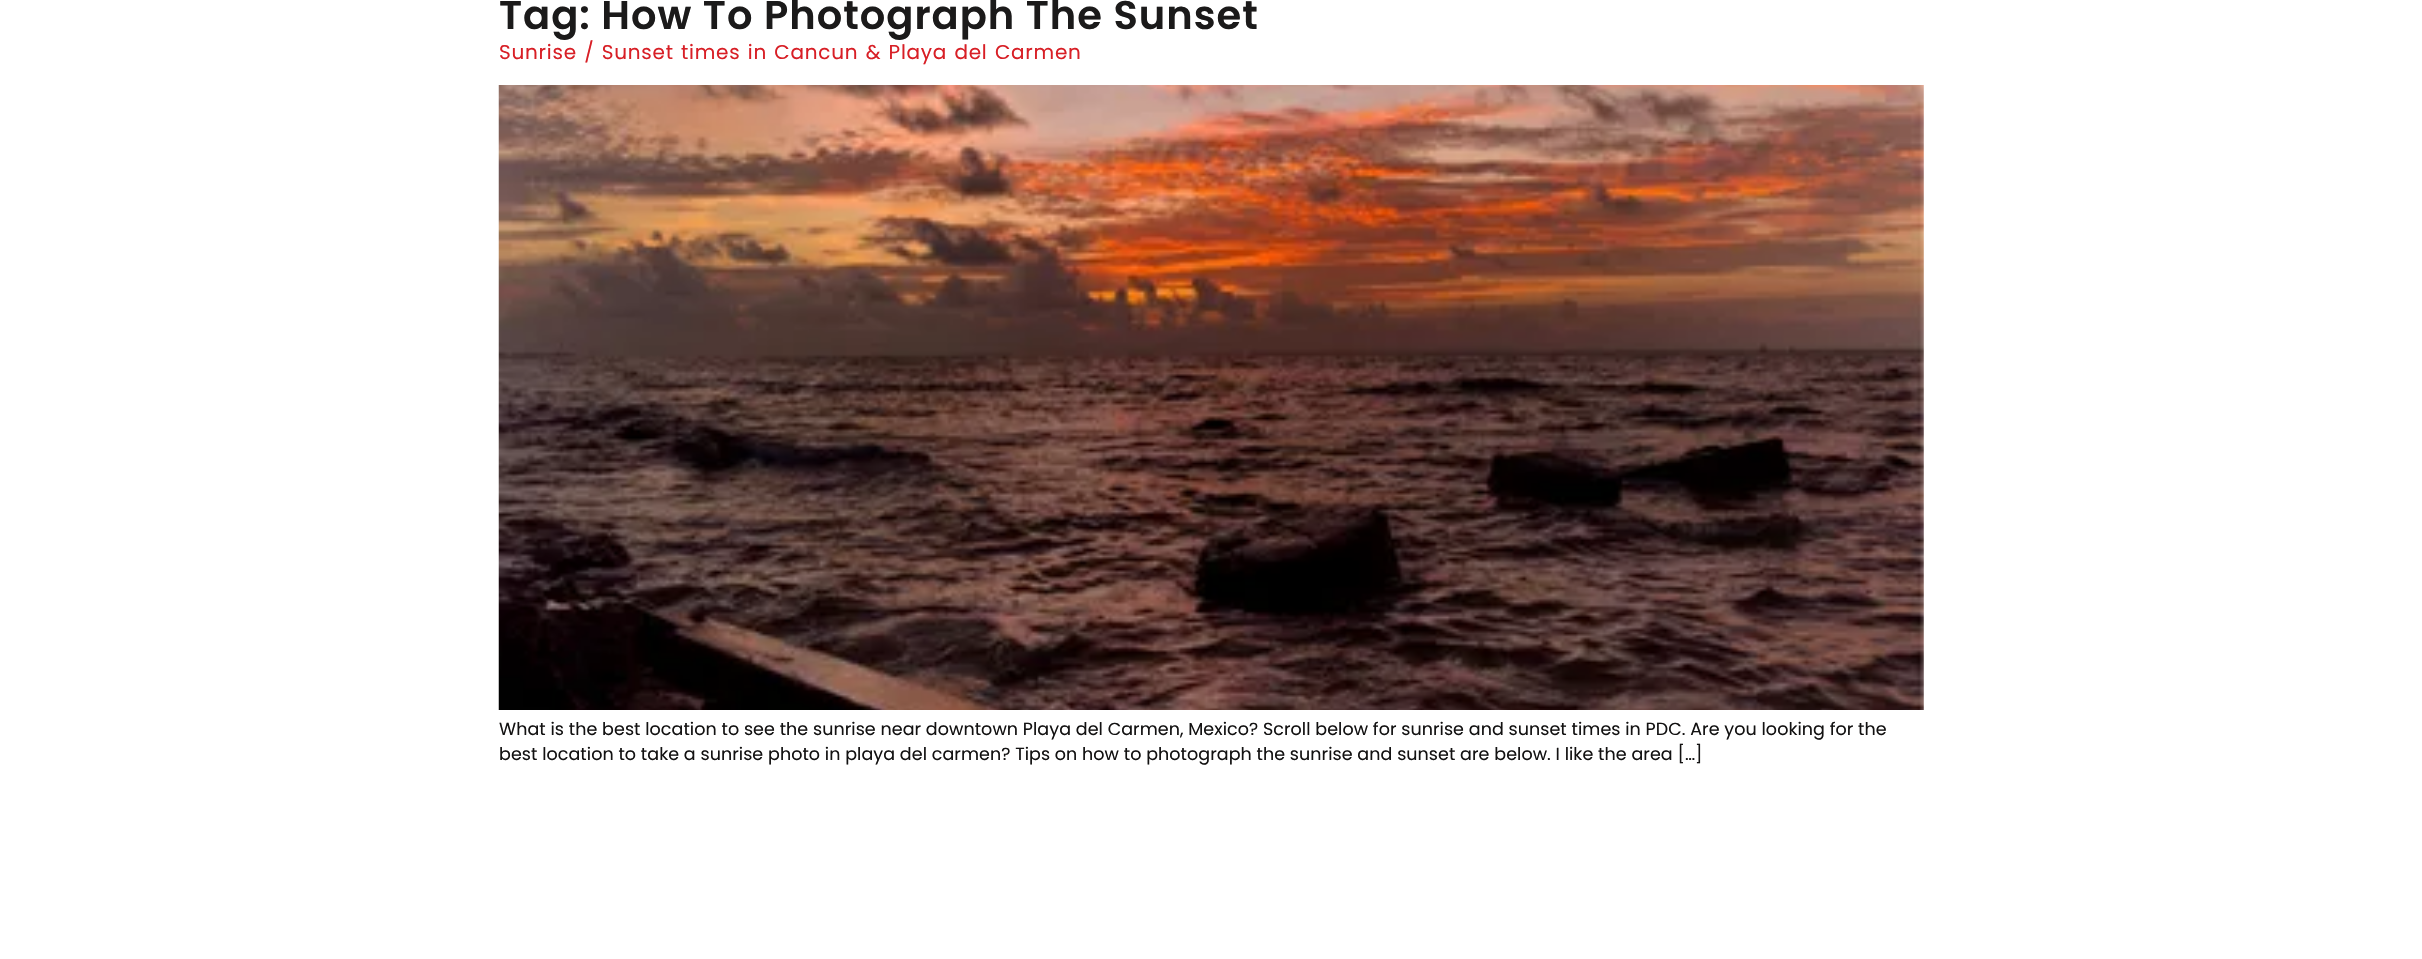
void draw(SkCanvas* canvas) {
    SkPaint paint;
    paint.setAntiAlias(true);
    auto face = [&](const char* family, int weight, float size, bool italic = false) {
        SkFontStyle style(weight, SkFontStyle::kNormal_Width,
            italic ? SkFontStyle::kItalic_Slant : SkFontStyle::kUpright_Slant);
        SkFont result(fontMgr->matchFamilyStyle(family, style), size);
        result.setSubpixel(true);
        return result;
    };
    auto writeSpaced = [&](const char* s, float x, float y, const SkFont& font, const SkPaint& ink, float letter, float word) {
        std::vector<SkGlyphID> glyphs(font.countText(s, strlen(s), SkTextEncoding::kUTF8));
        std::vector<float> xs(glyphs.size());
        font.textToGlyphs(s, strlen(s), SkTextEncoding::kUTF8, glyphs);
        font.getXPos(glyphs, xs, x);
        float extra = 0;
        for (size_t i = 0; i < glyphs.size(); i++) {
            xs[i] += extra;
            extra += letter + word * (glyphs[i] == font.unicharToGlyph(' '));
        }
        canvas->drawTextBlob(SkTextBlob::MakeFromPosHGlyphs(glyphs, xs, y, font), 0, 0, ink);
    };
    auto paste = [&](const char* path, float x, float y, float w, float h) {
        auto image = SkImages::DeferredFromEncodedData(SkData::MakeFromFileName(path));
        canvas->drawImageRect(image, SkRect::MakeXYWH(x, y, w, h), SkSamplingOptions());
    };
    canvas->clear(SK_ColorWHITE);
    auto kFont1 = face("Poppins", 600, 40);
    paint.setColor(SkColorSetRGB(27, 26, 26));
    writeSpaced("Tag: How To Photograph The Sunset", 499, 29, kFont1, paint, 1, 0);
    auto kFont2 = face("Poppins", 400, 20);
    paint.setColor(SkColorSetRGB(216, 31, 38));
    writeSpaced("Sunrise / Sunset times in Cancun & Playa del Carmen", 499, 59, kFont2, paint, 0.75f, 1.25f);
    paste("pic1.png", 498, 85, 1426, 625);
    auto kFont3 = face("Poppins", 400, 17.5f);
    paint.setColor(SkColorSetRGB(19, 18, 18));
    writeSpaced("What is the best location to see the sunrise near downtown Playa del Carmen, Mexico? Scroll below for sunrise and sunset times in PDC. Are you looking for the", 499, 735, kFont3, paint, 0.06f, 0);
    writeSpaced("best location to take a sunrise photo in playa del carmen? Tips on how to photograph the sunrise and sunset are below. I like the area […]", 499, 760, kFont3, paint, 0.06f, 0);
}
